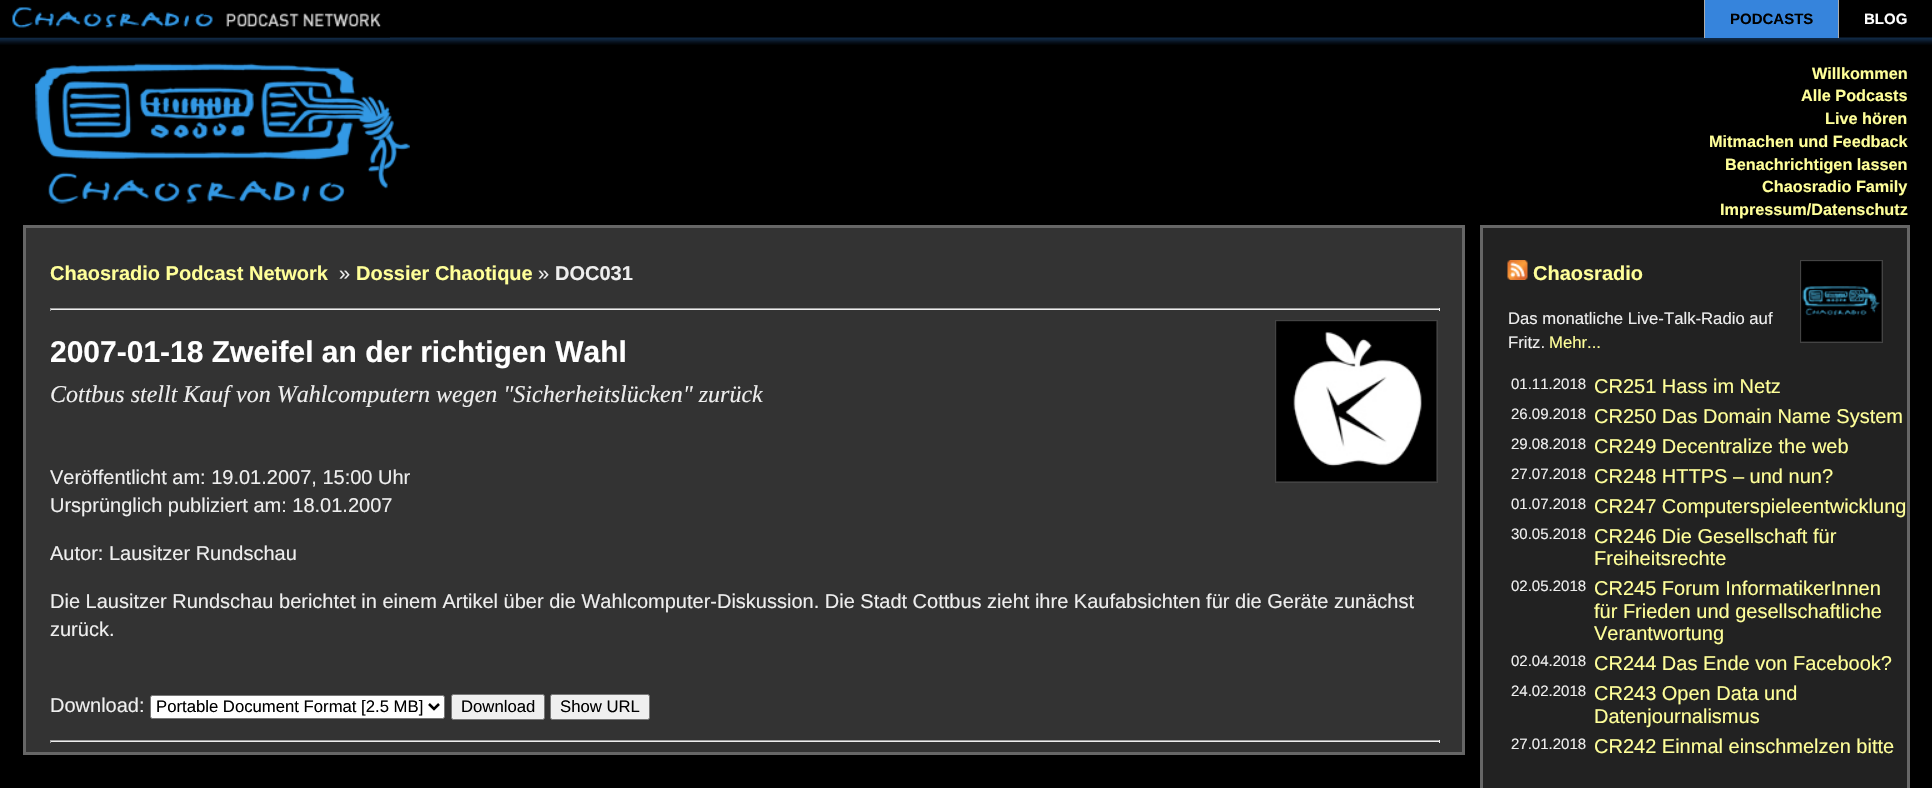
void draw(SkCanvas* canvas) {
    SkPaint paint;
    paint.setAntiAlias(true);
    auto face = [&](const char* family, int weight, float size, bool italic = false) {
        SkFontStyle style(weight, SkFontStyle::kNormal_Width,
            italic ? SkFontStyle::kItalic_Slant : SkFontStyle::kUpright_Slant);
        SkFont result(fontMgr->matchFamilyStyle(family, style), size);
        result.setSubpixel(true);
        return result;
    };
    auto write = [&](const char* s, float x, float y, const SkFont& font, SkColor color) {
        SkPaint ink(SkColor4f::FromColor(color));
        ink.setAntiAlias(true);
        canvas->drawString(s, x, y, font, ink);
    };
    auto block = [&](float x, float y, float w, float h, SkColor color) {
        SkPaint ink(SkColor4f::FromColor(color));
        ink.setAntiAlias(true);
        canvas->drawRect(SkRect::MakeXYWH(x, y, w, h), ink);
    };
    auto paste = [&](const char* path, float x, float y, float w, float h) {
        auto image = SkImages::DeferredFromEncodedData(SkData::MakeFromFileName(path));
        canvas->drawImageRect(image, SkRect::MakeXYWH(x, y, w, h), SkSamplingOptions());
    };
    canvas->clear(SK_ColorBLACK);
    paste("pic1.png", 0, 37, 1932, 8);
    paste("pic2.png", 0, 7, 390, 31);
    block(1705, 0, 133, 38, SkColorSetRGB(54, 132, 220));
    block(1704, 0, 1, 38, SkColorSetRGB(173, 173, 173));
    auto kFont1 = face("Liberation Sans", 700, 15);
    write("PODCASTS", 1730, 24, kFont1, SK_ColorBLACK);
    block(1838, 0, 1, 38, SkColorSetRGB(173, 173, 173));
    write("BLOG", 1864, 24, kFont1, SK_ColorWHITE);
    paste("pic3.png", 35, 63, 375, 141);
    auto kFont2 = face("Liberation Sans", 700, 16.25f);
    write("Willkommen", 1812, 79, kFont2, SkColorSetRGB(255, 255, 153));
    write("Alle Podcasts", 1801, 101, kFont2, SkColorSetRGB(255, 255, 153));
    write("Live hören", 1825, 124, kFont2, SkColorSetRGB(255, 255, 153));
    write("Mitmachen und Feedback", 1709, 147, kFont2, SkColorSetRGB(255, 255, 153));
    write("Benachrichtigen lassen", 1725, 170, kFont2, SkColorSetRGB(255, 255, 153));
    write("Chaosradio Family", 1762, 192, kFont2, SkColorSetRGB(255, 255, 153));
    write("Impressum/Datenschutz", 1720, 215, kFont2, SkColorSetRGB(255, 255, 153));
    paint.setColor(SkColorSetRGB(51, 51, 51));
    canvas->drawRect(SkRect::MakeXYWH(24.5f, 226.5f, 1439, 527), paint);
    paint.setStyle(SkPaint::kStroke_Style);
    paint.setStrokeWidth(3);
    paint.setColor(SkColorSetRGB(102, 102, 102));
    canvas->drawRect(SkRect::MakeXYWH(24.5f, 226.5f, 1439, 527), paint);
    auto kFont3 = face("Liberation Sans", 700, 20);
    write("Chaosradio Podcast Network", 50, 280, kFont3, SkColorSetRGB(255, 255, 153));
    auto kFont4 = face("Liberation Sans", 400, 20);
    write("»", 339, 280, kFont4, SkColorSetRGB(238, 238, 238));
    write("Dossier Chaotique", 356, 280, kFont3, SkColorSetRGB(255, 255, 153));
    write("»", 538, 280, kFont4, SkColorSetRGB(238, 238, 238));
    write("DOC031", 555, 280, kFont3, SkColorSetRGB(238, 238, 238));
    block(50, 308, 1390, 1, SkColorSetRGB(159, 159, 159));
    block(1439, 308, 1, 3, SkColorSetRGB(238, 238, 238));
    block(50, 309, 1390, 1, SkColorSetRGB(238, 238, 238));
    block(50, 308, 1, 3, SkColorSetRGB(159, 159, 159));
    auto kFont5 = face("Liberation Sans", 700, 30);
    write("2007-01-18 Zweifel an der richtigen Wahl", 50, 362, kFont5, SK_ColorWHITE);
    paint.setStrokeWidth(1);
    paint.setColor(SkColorSetRGB(68, 68, 68));
    canvas->drawRect(SkRect::MakeXYWH(1275.5f, 320.5f, 162, 162), paint);
    paste("pic4.png", 1276, 321, 161, 161);
    auto kFont6 = face("Liberation Serif", 400, 24, true);
    write("Cottbus stellt Kauf von Wahlcomputern wegen \"Sicherheitslücken\" zurück", 50, 402, kFont6, SkColorSetRGB(238, 238, 238));
    write("Veröffentlicht am: 19.01.2007, 15:00 Uhr", 50, 484, kFont4, SkColorSetRGB(238, 238, 238));
    write("Ursprünglich publiziert am: 18.01.2007", 50, 512, kFont4, SkColorSetRGB(238, 238, 238));
    write("Autor: Lausitzer Rundschau", 50, 560, kFont4, SkColorSetRGB(238, 238, 238));
    write("Die Lausitzer Rundschau berichtet in einem Artikel über die Wahlcomputer-Diskussion. Die Stadt Cottbus zieht ihre Kaufabsichten für die Geräte zunächst", 50, 608, kFont4, SkColorSetRGB(238, 238, 238));
    write("zurück.", 50, 636, kFont4, SkColorSetRGB(238, 238, 238));
    write("Download:", 50, 712, kFont4, SkColorSetRGB(238, 238, 238));
    paint.setStyle(SkPaint::kFill_Style);
    paint.setColor(SK_ColorWHITE);
    canvas->drawRoundRect(SkRect::MakeXYWH(150.5f, 695.5f, 294, 23), 2, 2, paint);
    paint.setStyle(SkPaint::kStroke_Style);
    paint.setColor(SkColorSetRGB(118, 118, 118));
    canvas->drawRoundRect(SkRect::MakeXYWH(150.5f, 695.5f, 294, 23), 2, 2, paint);
    paint.setStrokeWidth(2.5f);
    paint.setColor(SK_ColorBLACK);
    canvas->drawPath(SkPathBuilder().moveTo(429, 704).lineTo(434, 709).lineTo(439, 704).detach(), paint);
    auto kFont7 = face("Liberation Sans", 400, 16.7f);
    write("Portable Document Format [2.5 MB]", 156, 712, kFont7, SK_ColorBLACK);
    paint.setStyle(SkPaint::kFill_Style);
    paint.setColor(SkColorSetRGB(239, 239, 239));
    canvas->drawRoundRect(SkRect::MakeXYWH(451.5f, 694.5f, 93, 25), 2, 2, paint);
    paint.setStyle(SkPaint::kStroke_Style);
    paint.setStrokeWidth(1);
    paint.setColor(SkColorSetRGB(118, 118, 118));
    canvas->drawRoundRect(SkRect::MakeXYWH(451.5f, 694.5f, 93, 25), 2, 2, paint);
    write("Download", 461, 712, kFont7, SK_ColorBLACK);
    paint.setStyle(SkPaint::kFill_Style);
    paint.setColor(SkColorSetRGB(239, 239, 239));
    canvas->drawRoundRect(SkRect::MakeXYWH(550.5f, 694.5f, 99, 25), 2, 2, paint);
    paint.setStyle(SkPaint::kStroke_Style);
    paint.setColor(SkColorSetRGB(118, 118, 118));
    canvas->drawRoundRect(SkRect::MakeXYWH(550.5f, 694.5f, 99, 25), 2, 2, paint);
    write("Show URL", 560, 712, kFont7, SK_ColorBLACK);
    block(50, 740, 1390, 1, SkColorSetRGB(159, 159, 159));
    block(1439, 740, 1, 3, SkColorSetRGB(238, 238, 238));
    block(50, 741, 1390, 1, SkColorSetRGB(238, 238, 238));
    block(50, 740, 1, 3, SkColorSetRGB(159, 159, 159));
    paint.setStyle(SkPaint::kFill_Style);
    paint.setColor(SkColorSetRGB(34, 34, 34));
    canvas->drawRect(SkRect::MakeXYWH(1481.5f, 226.5f, 427, 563), paint);
    paint.setStyle(SkPaint::kStroke_Style);
    paint.setStrokeWidth(3);
    paint.setColor(SkColorSetRGB(102, 102, 102));
    canvas->drawRect(SkRect::MakeXYWH(1481.5f, 226.5f, 427, 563), paint);
    paste("pic5.png", 1507, 260, 21, 20);
    write("Chaosradio", 1533, 280, kFont3, SkColorSetRGB(255, 255, 153));
    paint.setStrokeWidth(1);
    paint.setColor(SkColorSetRGB(68, 68, 68));
    canvas->drawRect(SkRect::MakeXYWH(1800.5f, 260.5f, 82, 82), paint);
    paste("pic6.png", 1801, 261, 81, 81);
    write("Das monatliche Live-Talk-Radio auf", 1508, 324, kFont7, SkColorSetRGB(238, 238, 238));
    write("Fritz.", 1508, 348, kFont7, SkColorSetRGB(238, 238, 238));
    write("Mehr...", 1549, 348, kFont7, SkColorSetRGB(255, 255, 153));
    auto kFont8 = face("Liberation Sans", 400, 15);
    write("01.11.2018", 1511, 389, kFont8, SkColorSetRGB(238, 238, 238));
    write("CR251 Hass im Netz", 1594, 393, kFont4, SkColorSetRGB(255, 255, 153));
    write("26.09.2018", 1511, 419, kFont8, SkColorSetRGB(238, 238, 238));
    write("CR250 Das Domain Name System", 1594, 423, kFont4, SkColorSetRGB(255, 255, 153));
    write("29.08.2018", 1511, 449, kFont8, SkColorSetRGB(238, 238, 238));
    write("CR249 Decentralize the web", 1594, 453, kFont4, SkColorSetRGB(255, 255, 153));
    write("27.07.2018", 1511, 479, kFont8, SkColorSetRGB(238, 238, 238));
    write("CR248 HTTPS – und nun?", 1594, 483, kFont4, SkColorSetRGB(255, 255, 153));
    write("01.07.2018", 1511, 509, kFont8, SkColorSetRGB(238, 238, 238));
    write("CR247 Computerspieleentwicklung", 1594, 513, kFont4, SkColorSetRGB(255, 255, 153));
    write("30.05.2018", 1511, 539, kFont8, SkColorSetRGB(238, 238, 238));
    write("CR246 Die Gesellschaft für", 1594, 543, kFont4, SkColorSetRGB(255, 255, 153));
    write("Freiheitsrechte", 1594, 565, kFont4, SkColorSetRGB(255, 255, 153));
    write("02.05.2018", 1511, 591, kFont8, SkColorSetRGB(238, 238, 238));
    write("CR245 Forum InformatikerInnen", 1594, 595, kFont4, SkColorSetRGB(255, 255, 153));
    write("für Frieden und gesellschaftliche", 1594, 618, kFont4, SkColorSetRGB(255, 255, 153));
    write("Verantwortung", 1594, 640, kFont4, SkColorSetRGB(255, 255, 153));
    write("02.04.2018", 1511, 666, kFont8, SkColorSetRGB(238, 238, 238));
    write("CR244 Das Ende von Facebook?", 1594, 670, kFont4, SkColorSetRGB(255, 255, 153));
    write("24.02.2018", 1511, 696, kFont8, SkColorSetRGB(238, 238, 238));
    write("CR243 Open Data und", 1594, 700, kFont4, SkColorSetRGB(255, 255, 153));
    write("Datenjournalismus", 1594, 723, kFont4, SkColorSetRGB(255, 255, 153));
    write("27.01.2018", 1511, 749, kFont8, SkColorSetRGB(238, 238, 238));
    write("CR242 Einmal einschmelzen bitte", 1594, 753, kFont4, SkColorSetRGB(255, 255, 153));
}
